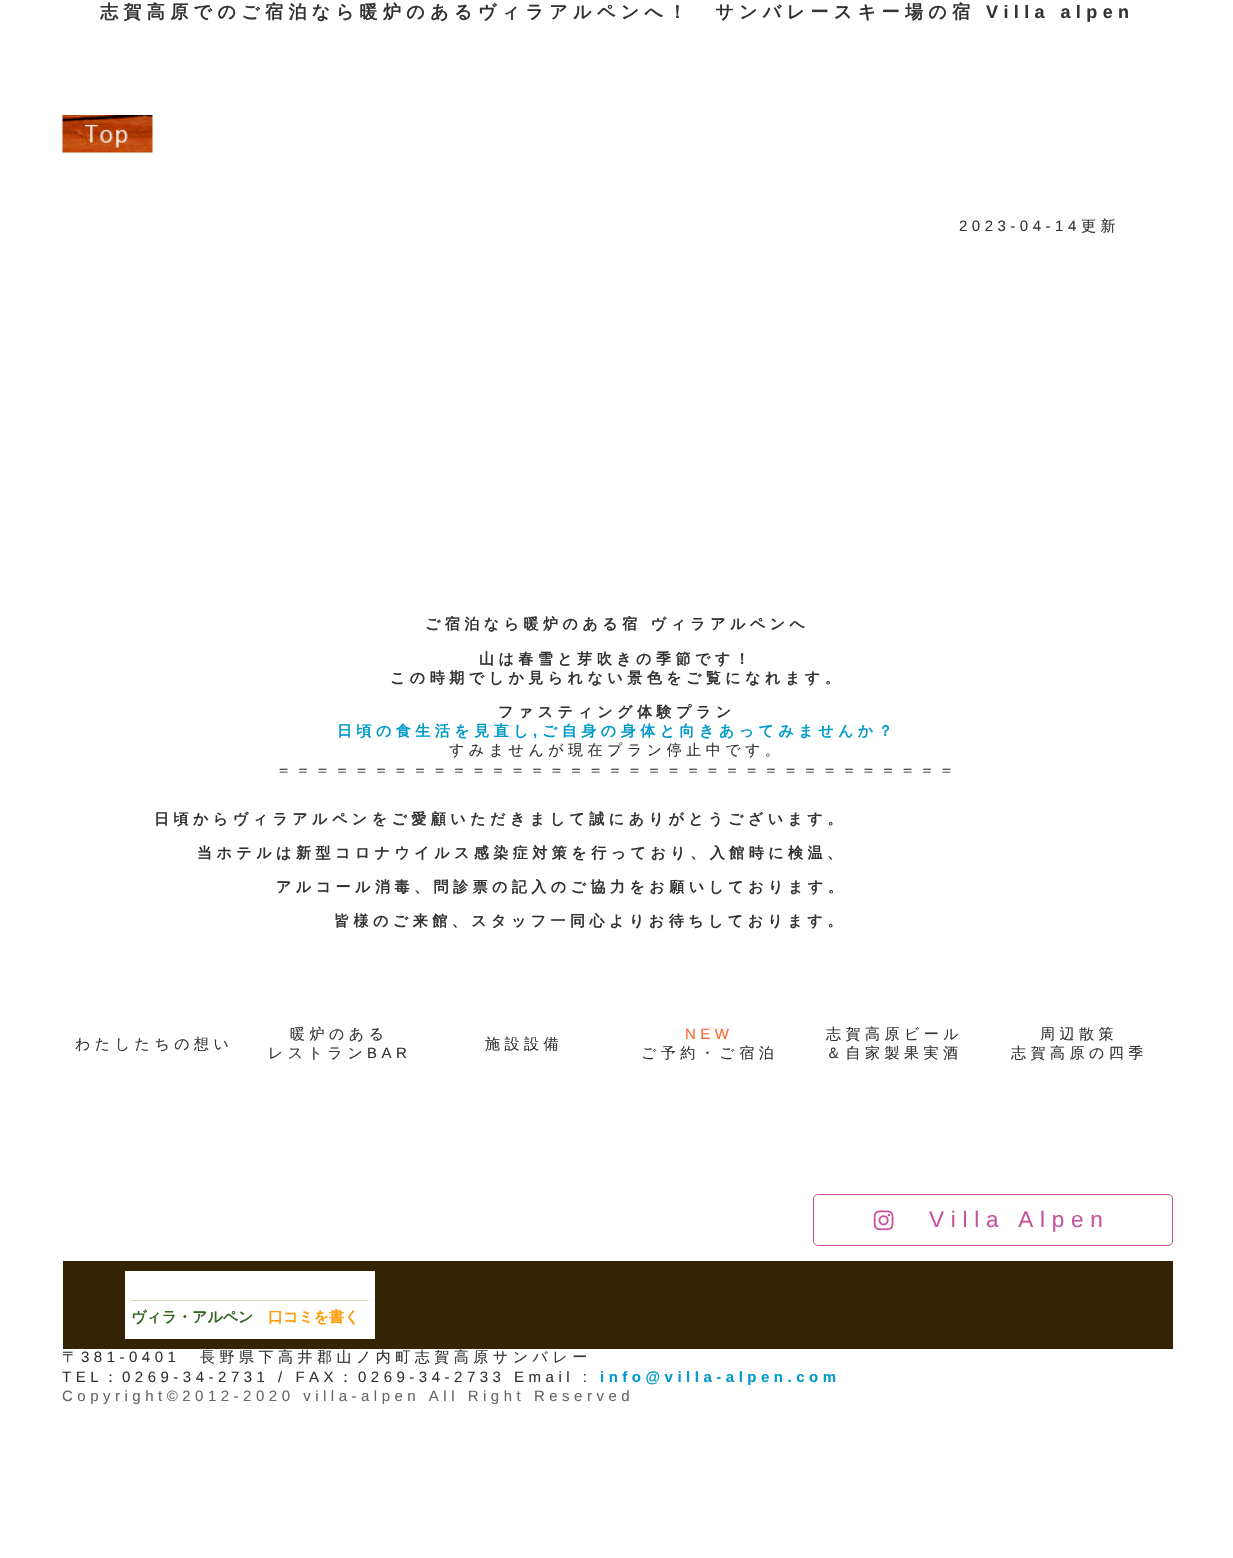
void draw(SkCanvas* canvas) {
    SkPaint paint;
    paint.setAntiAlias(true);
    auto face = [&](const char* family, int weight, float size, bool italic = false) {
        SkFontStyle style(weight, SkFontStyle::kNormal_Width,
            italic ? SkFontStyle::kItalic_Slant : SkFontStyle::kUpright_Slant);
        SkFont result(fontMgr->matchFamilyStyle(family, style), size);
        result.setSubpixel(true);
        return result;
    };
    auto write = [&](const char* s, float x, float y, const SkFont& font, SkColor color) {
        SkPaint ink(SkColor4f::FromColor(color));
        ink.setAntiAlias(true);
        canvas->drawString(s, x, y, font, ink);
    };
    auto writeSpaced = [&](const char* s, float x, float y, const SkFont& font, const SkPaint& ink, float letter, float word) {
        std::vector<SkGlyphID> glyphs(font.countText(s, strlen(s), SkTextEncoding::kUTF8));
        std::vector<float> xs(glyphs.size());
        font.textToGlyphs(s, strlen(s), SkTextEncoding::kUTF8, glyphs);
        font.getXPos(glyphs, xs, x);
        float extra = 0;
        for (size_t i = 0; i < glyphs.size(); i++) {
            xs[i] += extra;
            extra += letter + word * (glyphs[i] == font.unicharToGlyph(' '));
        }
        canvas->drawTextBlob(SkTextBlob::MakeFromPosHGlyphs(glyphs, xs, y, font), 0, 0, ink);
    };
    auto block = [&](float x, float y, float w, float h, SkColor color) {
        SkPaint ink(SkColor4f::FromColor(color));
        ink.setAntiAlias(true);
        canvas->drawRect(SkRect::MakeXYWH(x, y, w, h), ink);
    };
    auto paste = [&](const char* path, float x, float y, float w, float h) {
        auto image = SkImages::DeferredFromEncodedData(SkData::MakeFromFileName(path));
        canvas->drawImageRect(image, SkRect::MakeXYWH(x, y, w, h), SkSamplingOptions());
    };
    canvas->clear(SK_ColorWHITE);
    auto kFont1 = face("WenQuanYi Zen Hei", 700, 18);
    paint.setColor(SkColorSetRGB(51, 51, 51));
    writeSpaced("志賀高原でのご宿泊なら暖炉のあるヴィラアルペンへ！　サンバレースキー場の宿", 100, 18, kFont1, paint, 5.4f, 0);
    auto kFont2 = face("Liberation Sans", 700, 18);
    writeSpaced("Villa alpen", 986, 18, kFont2, paint, 5.4f, 0);
    paste("pic1.png", 62, 115, 91, 38);
    auto kFont3 = face("Liberation Sans", 400, 15);
    writeSpaced("2023-04-14", 959, 231, kFont3, paint, 4.5f, 0);
    auto kFont4 = face("WenQuanYi Zen Hei", 500, 15);
    writeSpaced("更新", 1081, 231, kFont4, paint, 4.5f, 0);
    auto kFont5 = face("WenQuanYi Zen Hei", 700, 15);
    writeSpaced("ご宿泊なら暖炉のある宿 ヴィラアルペンへ", 425, 629, kFont5, paint, 4.5f, 0);
    writeSpaced("山は春雪と芽吹きの季節です！", 479, 664, kFont5, paint, 4.5f, 0);
    writeSpaced("この時期でしか見られない景色をご覧になれます。", 390, 683, kFont5, paint, 4.5f, 0);
    writeSpaced("ファスティング体験プラン", 498, 717, kFont5, paint, 4.5f, 0);
    paint.setColor(SkColorSetRGB(0, 153, 204));
    writeSpaced("日頃の食生活を見直し", 337, 736, kFont5, paint, 4.5f, 0);
    auto kFont6 = face("Liberation Sans", 700, 15);
    writeSpaced(",", 533, 736, kFont6, paint, 4.5f, 0);
    writeSpaced("ご自身の身体と向きあってみませんか？", 542, 736, kFont5, paint, 4.5f, 0);
    paint.setColor(SkColorSetRGB(51, 51, 51));
    writeSpaced("すみませんが現在プラン停止中です。", 449, 755, kFont4, paint, 4.5f, 0);
    writeSpaced("＝＝＝＝＝＝＝＝＝＝＝＝＝＝＝＝＝＝＝＝＝＝＝＝＝＝＝＝＝＝＝＝＝＝＝", 276, 775, kFont4, paint, 4.5f, 0);
    writeSpaced("日頃からヴィラアルペンをご愛顧いただきまして誠にありがとうございます。", 154, 824, kFont5, paint, 4.5f, 0);
    writeSpaced("当ホテルは新型コロナウイルス感染症対策を行っており、入館時に検温、", 197, 858, kFont5, paint, 4.5f, 0);
    writeSpaced("アルコール消毒、問診票の記入のご協力をお願いしております。", 276, 892, kFont5, paint, 4.5f, 0);
    writeSpaced("皆様のご来館、スタッフ一同心よりお待ちしております。", 334, 926, kFont5, paint, 4.5f, 0);
    writeSpaced("わたしたちの想い", 75, 1049, kFont4, paint, 4.5f, 0);
    writeSpaced("暖炉のある", 290, 1039, kFont4, paint, 4.5f, 0);
    writeSpaced("レストラン", 268, 1058, kFont4, paint, 4.5f, 0);
    writeSpaced("BAR", 367, 1058, kFont3, paint, 4.5f, 0);
    writeSpaced("施設設備", 485, 1049, kFont4, paint, 4.5f, 0);
    paint.setColor(SkColorSetRGB(255, 102, 51));
    writeSpaced("NEW", 685, 1039, kFont3, paint, 4.5f, 0);
    paint.setColor(SkColorSetRGB(51, 51, 51));
    writeSpaced("ご予約・ご宿泊", 641, 1058, kFont4, paint, 4.5f, 0);
    writeSpaced("志賀高原ビール", 826, 1039, kFont4, paint, 4.5f, 0);
    writeSpaced("＆自家製果実酒", 826, 1058, kFont4, paint, 4.5f, 0);
    writeSpaced("周辺散策", 1040, 1039, kFont4, paint, 4.5f, 0);
    writeSpaced("志賀高原の四季", 1011, 1058, kFont4, paint, 4.5f, 0);
    paint.setStyle(SkPaint::kStroke_Style);
    paint.setStrokeWidth(1);
    paint.setColor(SkColorSetRGB(198, 82, 154));
    canvas->drawRoundRect(SkRect::MakeXYWH(813.5f, 1194.5f, 359, 51), 4.5f, 4.5f, paint);
    paste("pic2.png", 873, 1210, 21, 21);
    auto kFont7 = face("Liberation Sans", 400, 22.5f);
    paint.setStyle(SkPaint::kFill_Style);
    writeSpaced("Villa Alpen", 929, 1227, kFont7, paint, 6.75f, 0);
    block(63, 1261, 1110, 88, SkColorSetRGB(52, 36, 5));
    block(125, 1271, 250, 68, SK_ColorWHITE);
    block(131, 1300, 238, 1, SkColorSetRGB(209, 223, 184));
    write("ヴィラ・アルペン", 131, 1322, kFont5, SkColorSetRGB(51, 102, 34));
    write("口コミを書く", 268, 1322, kFont5, SkColorSetRGB(255, 153, 0));
    paint.setColor(SkColorSetRGB(51, 51, 51));
    writeSpaced("〒", 62, 1362, kFont4, paint, 4.5f, 0);
    writeSpaced("381-0401", 81, 1362, kFont3, paint, 4.5f, 0);
    writeSpaced("長野県下高井郡山ノ内町志賀高原サンバレー", 200, 1362, kFont4, paint, 4.5f, 0);
    writeSpaced("TEL", 62, 1382, kFont3, paint, 4.5f, 0);
    writeSpaced("：", 103, 1382, kFont4, paint, 4.5f, 0);
    writeSpaced("0269-34-2731 / FAX", 122, 1382, kFont3, paint, 4.5f, 0);
    writeSpaced("：", 338, 1382, kFont4, paint, 4.5f, 0);
    writeSpaced("0269-34-2733 Email :", 358, 1382, kFont3, paint, 4.5f, 0);
    paint.setColor(SkColorSetRGB(0, 153, 204));
    writeSpaced("info@villa-alpen.com", 600, 1382, kFont6, paint, 4.5f, 0);
    paint.setColor(SkColorSetRGB(102, 102, 102));
    writeSpaced("Copyright©2012-2020 villa-alpen All Right Reserved", 62, 1401, kFont3, paint, 4.5f, 0);
}
